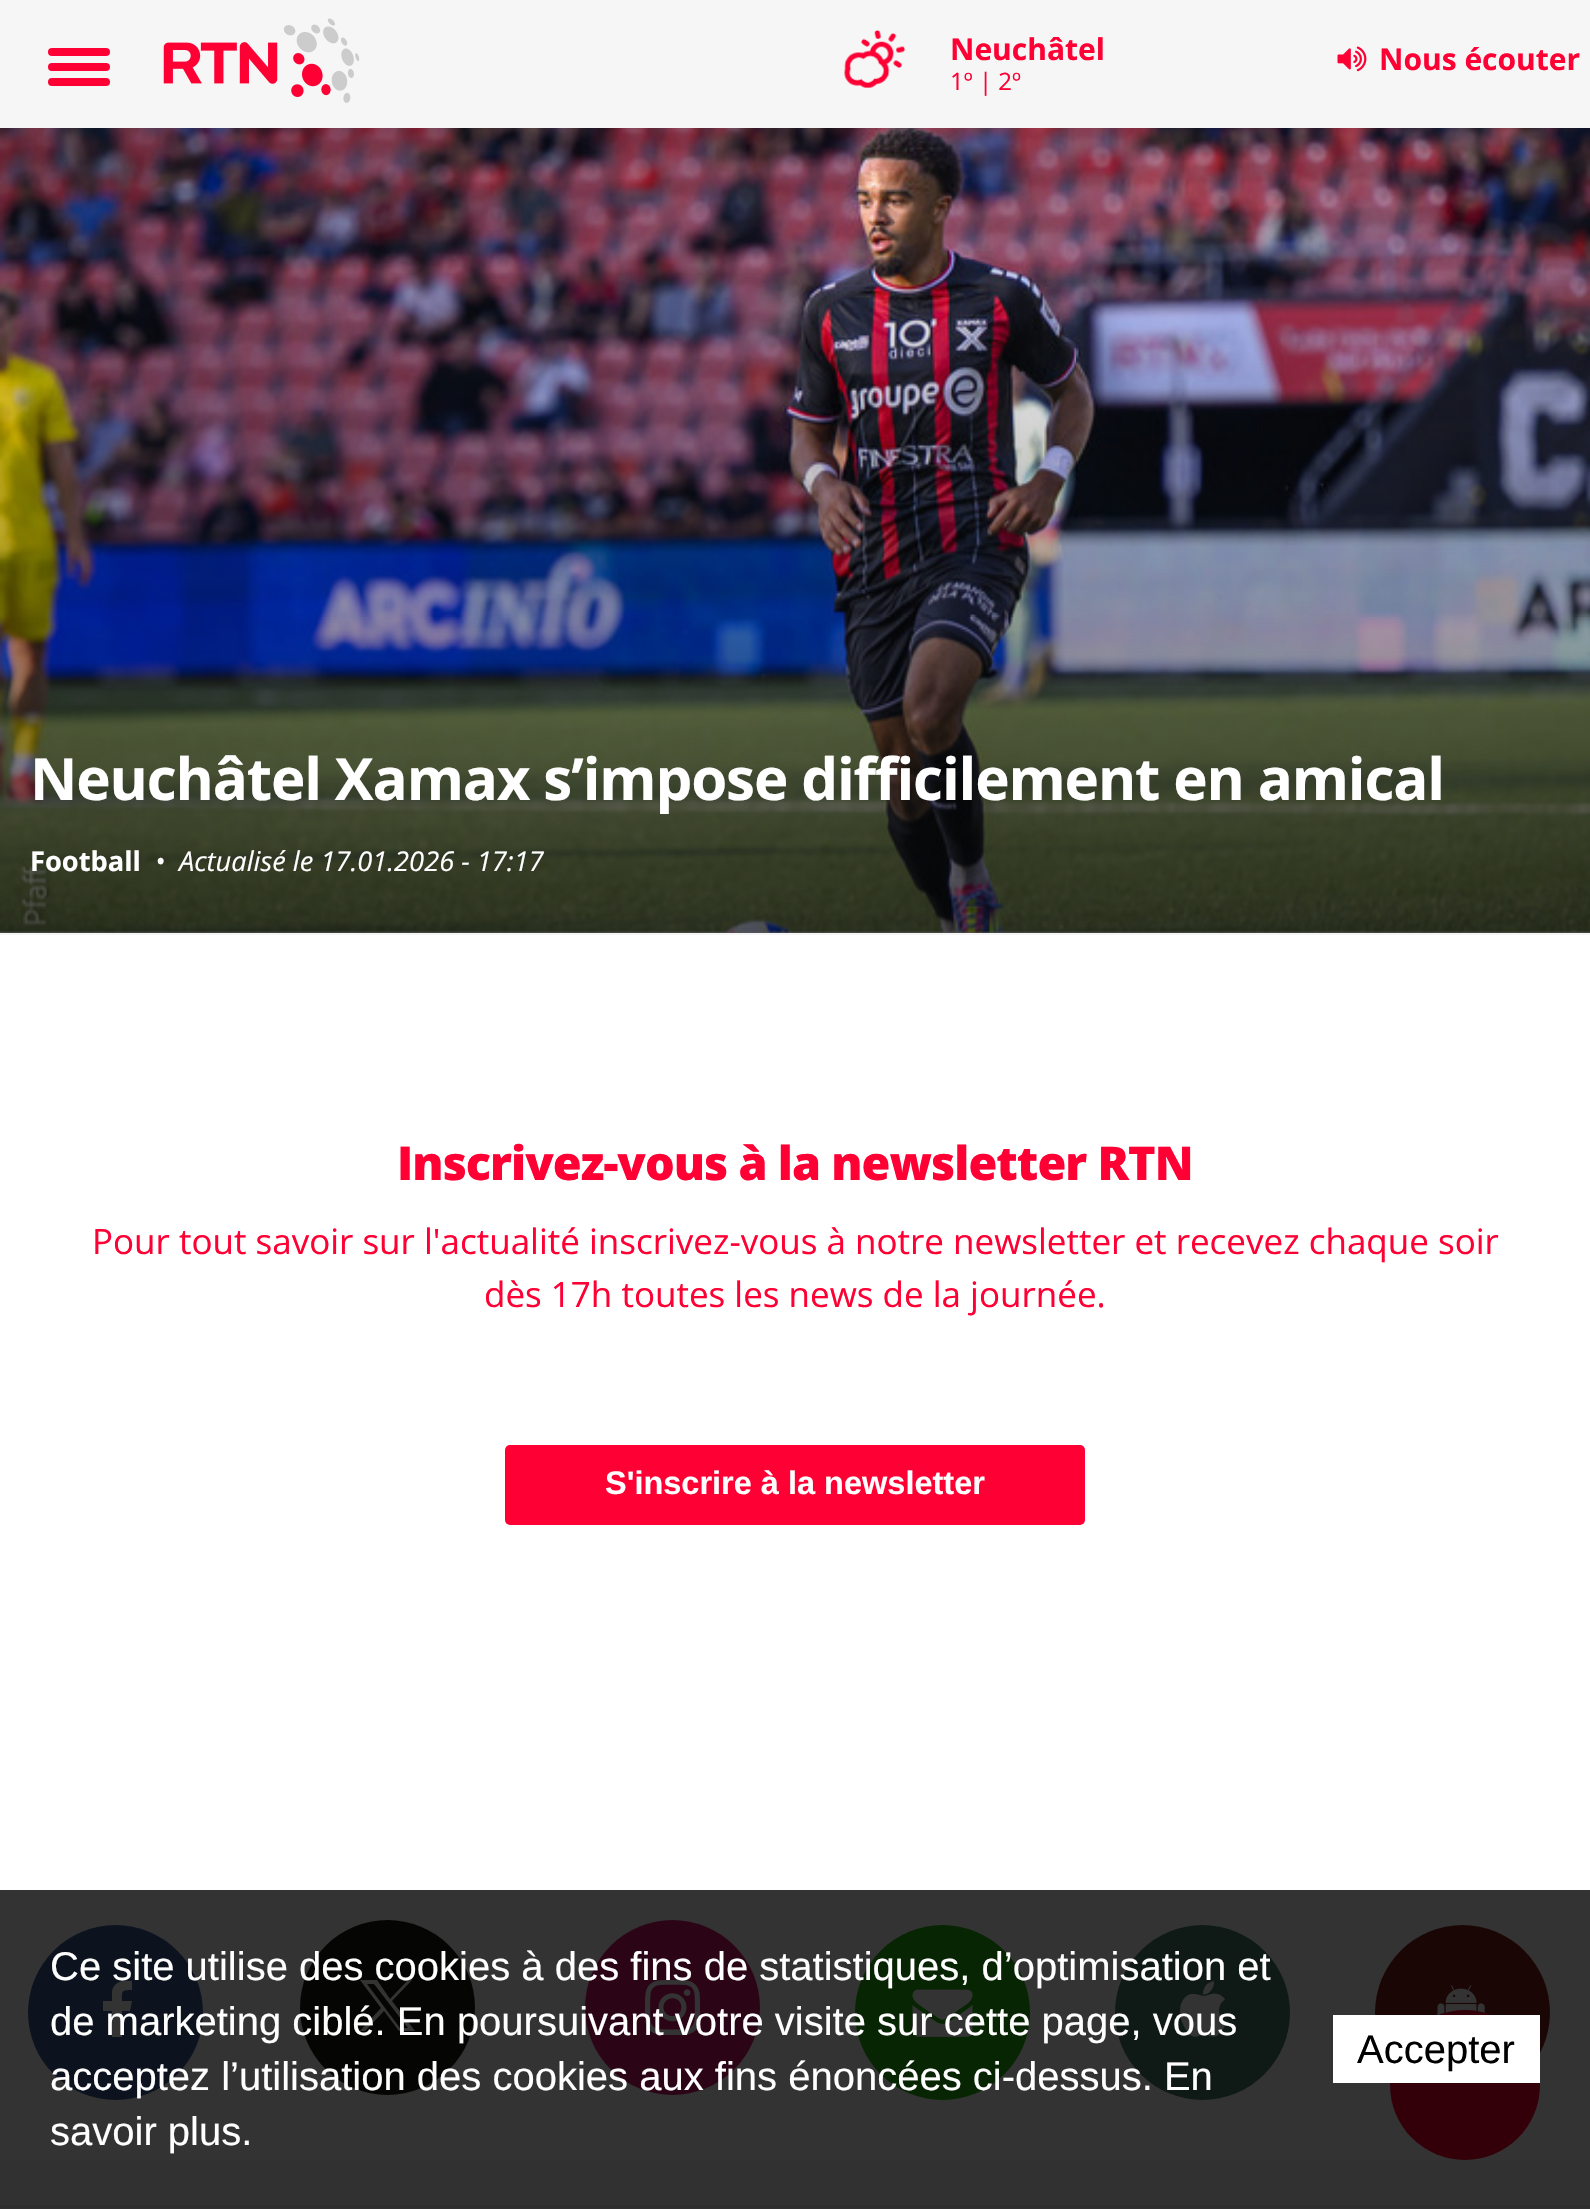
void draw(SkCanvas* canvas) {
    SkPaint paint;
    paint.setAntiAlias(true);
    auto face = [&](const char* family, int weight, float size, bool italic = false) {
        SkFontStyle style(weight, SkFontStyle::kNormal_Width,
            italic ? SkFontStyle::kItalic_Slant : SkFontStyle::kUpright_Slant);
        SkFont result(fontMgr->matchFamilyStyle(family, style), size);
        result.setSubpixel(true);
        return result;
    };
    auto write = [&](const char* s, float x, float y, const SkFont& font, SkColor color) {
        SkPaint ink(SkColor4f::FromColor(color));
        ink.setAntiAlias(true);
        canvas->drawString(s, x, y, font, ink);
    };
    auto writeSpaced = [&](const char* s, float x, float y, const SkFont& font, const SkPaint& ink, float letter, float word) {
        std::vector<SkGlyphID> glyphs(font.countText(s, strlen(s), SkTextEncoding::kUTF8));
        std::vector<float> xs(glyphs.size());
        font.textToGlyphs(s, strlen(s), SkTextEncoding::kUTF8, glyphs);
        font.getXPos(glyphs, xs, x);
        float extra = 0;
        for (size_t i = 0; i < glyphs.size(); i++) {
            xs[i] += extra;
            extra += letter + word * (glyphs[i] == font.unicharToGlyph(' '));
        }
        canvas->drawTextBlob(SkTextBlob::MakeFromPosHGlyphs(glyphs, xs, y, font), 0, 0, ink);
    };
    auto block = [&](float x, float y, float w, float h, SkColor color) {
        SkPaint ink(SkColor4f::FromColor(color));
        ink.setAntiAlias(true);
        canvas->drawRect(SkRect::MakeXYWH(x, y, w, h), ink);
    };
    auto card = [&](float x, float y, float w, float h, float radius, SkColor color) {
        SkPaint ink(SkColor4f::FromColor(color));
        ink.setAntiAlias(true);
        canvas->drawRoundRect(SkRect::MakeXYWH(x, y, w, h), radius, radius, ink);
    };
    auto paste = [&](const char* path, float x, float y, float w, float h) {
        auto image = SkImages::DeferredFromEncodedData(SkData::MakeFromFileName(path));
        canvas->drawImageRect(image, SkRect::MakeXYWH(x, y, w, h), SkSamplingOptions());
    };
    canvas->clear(SK_ColorWHITE);
    block(0, 1890, 1590, 270, SkColorSetRGB(51, 51, 51));
    block(0, 0, 1590, 128, SkColorSetRGB(246, 246, 246));
    card(48, 63, 62, 8, 4, SkColorSetRGB(254, 0, 52));
    card(48, 48, 62, 8, 4, SkColorSetRGB(254, 0, 52));
    card(48, 78, 62, 8, 4, SkColorSetRGB(254, 0, 52));
    paste("pic1.png", 163, 18, 197, 85);
    paste("pic2.png", 844, 30, 61, 58);
    auto kFont1 = face("Open Sans", 700, 30);
    write("Neuchâtel", 950, 60, kFont1, SkColorSetRGB(254, 0, 52));
    auto kFont2 = face("Open Sans", 400, 24);
    write("1º | 2º", 950, 90, kFont2, SkColorSetRGB(254, 0, 52));
    paste("pic3.png", 1337, 46, 30, 26);
    write("Nous écouter", 1379, 70, kFont1, SkColorSetRGB(254, 0, 52));
    block(0, 933, 1590, 2, SkColorSetRGB(245, 245, 245));
    paste("pic4.png", 0, 128, 1590, 805);
    {
        const SkColor colors[] = {SkColorSetARGB(0, 0, 0, 0), SkColorSetARGB(166, 0, 0, 0)};
        const float stops[] = {0, 1};
        const SkPoint ends[] = {{795, 250}, {795, 933}};
        paint.setShader(SkGradientShader::MakeLinear(ends, colors, stops, 2, SkTileMode::kClamp));
        paint.setAlpha(255);
    }
    canvas->drawRect(SkRect::MakeXYWH(0, 273, 1590, 660), paint);
    auto kFont3 = face("Open Sans", 700, 58.3f);
    paint.setShader(nullptr);
    paint.setColor(SK_ColorWHITE);
    writeSpaced("Neuchâtel Xamax s’impose difficilement en amical", 30, 800, kFont3, paint, -1.15f, 0);
    auto kFont4 = face("Open Sans", 700, 27.25f);
    write("Football", 30, 871, kFont4, SK_ColorWHITE);
    auto kFont5 = face("Open Sans", 400, 27.25f, true);
    write("•", 155, 871, kFont5, SK_ColorWHITE);
    write("Actualisé le 17.01.2026 - 17:17", 179, 871, kFont5, SK_ColorWHITE);
    auto kFont6 = face("Open Sans", 800, 46.7f);
    paint.setColor(SkColorSetRGB(254, 0, 52));
    writeSpaced("Inscrivez-vous à la newsletter RTN", 397, 1180, kFont6, paint, -0.95f, 0);
    auto kFont7 = face("Open Sans", 400, 35);
    write("Pour tout savoir sur l'actualité inscrivez-vous à notre newsletter et recevez chaque soir", 92, 1254, kFont7, SkColorSetRGB(254, 0, 52));
    write("dès 17h toutes les news de la journée.", 484, 1307, kFont7, SkColorSetRGB(254, 0, 52));
    card(505, 1445, 580, 80, 5, SkColorSetRGB(254, 0, 52));
    auto kFont8 = face("Liberation Sans", 700, 32.5f);
    write("S'inscrire à la newsletter", 605, 1494, kFont8, SK_ColorWHITE);
    paint.setColor(SkColorSetRGB(12, 18, 30));
    canvas->drawCircle(115.5f, 2012.5f, 87.5f, paint);
    paint.setColor(SkColorSetRGB(51, 51, 51));
    canvas->drawPath(SkPathBuilder().moveTo(132, 1981).lineTo(132, 1990).cubicTo(121, 1990, 122, 1991, 122, 2001).lineTo(132, 2001).lineTo(130, 2011).lineTo(122, 2011).lineTo(122, 2037).lineTo(112, 2037).lineTo(112, 2011).lineTo(103, 2011).lineTo(103, 2001).lineTo(112, 2001).lineTo(112, 1991).cubicTo(114, 1981, 124, 1980, 132, 1981).close().detach(), paint);
    paint.setColor(SkColorSetRGB(5, 5, 4));
    canvas->drawCircle(387.5f, 2007.5f, 87.5f, paint);
    paint.setColor(SkColorSetRGB(51, 51, 51));
    canvas->drawPath(SkPathBuilder().moveTo(360, 1980).lineTo(381, 2008).lineTo(360, 2031).lineTo(365, 2031).lineTo(384, 2011).lineTo(399, 2031).lineTo(415, 2031).lineTo(392, 2001).lineTo(412, 1980).lineTo(408, 1980).lineTo(390, 1999).lineTo(377, 1980).close().moveTo(367, 1984).lineTo(374, 1984).lineTo(408, 2028).lineTo(400, 2028).close().detach(), paint);
    paint.setColor(SkColorSetRGB(43, 5, 22));
    canvas->drawCircle(672.5f, 2007.5f, 87.5f, paint);
    paste("pic5.png", 645, 1980, 55, 55);
    paint.setColor(SkColorSetRGB(7, 36, 3));
    canvas->drawCircle(942.5f, 2012.5f, 87.5f, paint);
    paste("pic6.png", 912, 1989, 61, 48);
    paint.setColor(SkColorSetRGB(15, 26, 23));
    canvas->drawCircle(1202.5f, 2012.5f, 87.5f, paint);
    paste("pic7.png", 1180, 1981, 47, 56);
    paint.setColor(SkColorSetRGB(27, 6, 6));
    canvas->drawCircle(1462.5f, 2012.5f, 87.5f, paint);
    paste("pic8.png", 1437, 1985, 48, 30);
    block(0, 2160, 1590, 45, SkColorSetRGB(49, 49, 49));
    paint.setColor(SkColorSetRGB(51, 0, 10));
    canvas->drawCircle(1465, 2085, 75, paint);
    auto kFont9 = face("Liberation Sans", 400, 40);
    write("Ce site utilise des cookies à des fins de statistiques, d’optimisation et", 50, 1980, kFont9, SK_ColorWHITE);
    write("de marketing ciblé. En poursuivant votre visite sur cette page, vous", 50, 2035, kFont9, SK_ColorWHITE);
    write("acceptez l’utilisation des cookies aux fins énoncées ci-dessus. En", 50, 2090, kFont9, SK_ColorWHITE);
    write("savoir plus.", 50, 2145, kFont9, SK_ColorWHITE);
    block(1333, 2015, 207, 68, SK_ColorWHITE);
    write("Accepter", 1357, 2063, kFont9, SK_ColorBLACK);
    block(0, 2208, 1590, 1, SkColorSetRGB(48, 48, 48));
    block(0, 2205, 1590, 3, SkColorSetRGB(45, 45, 45));
}
